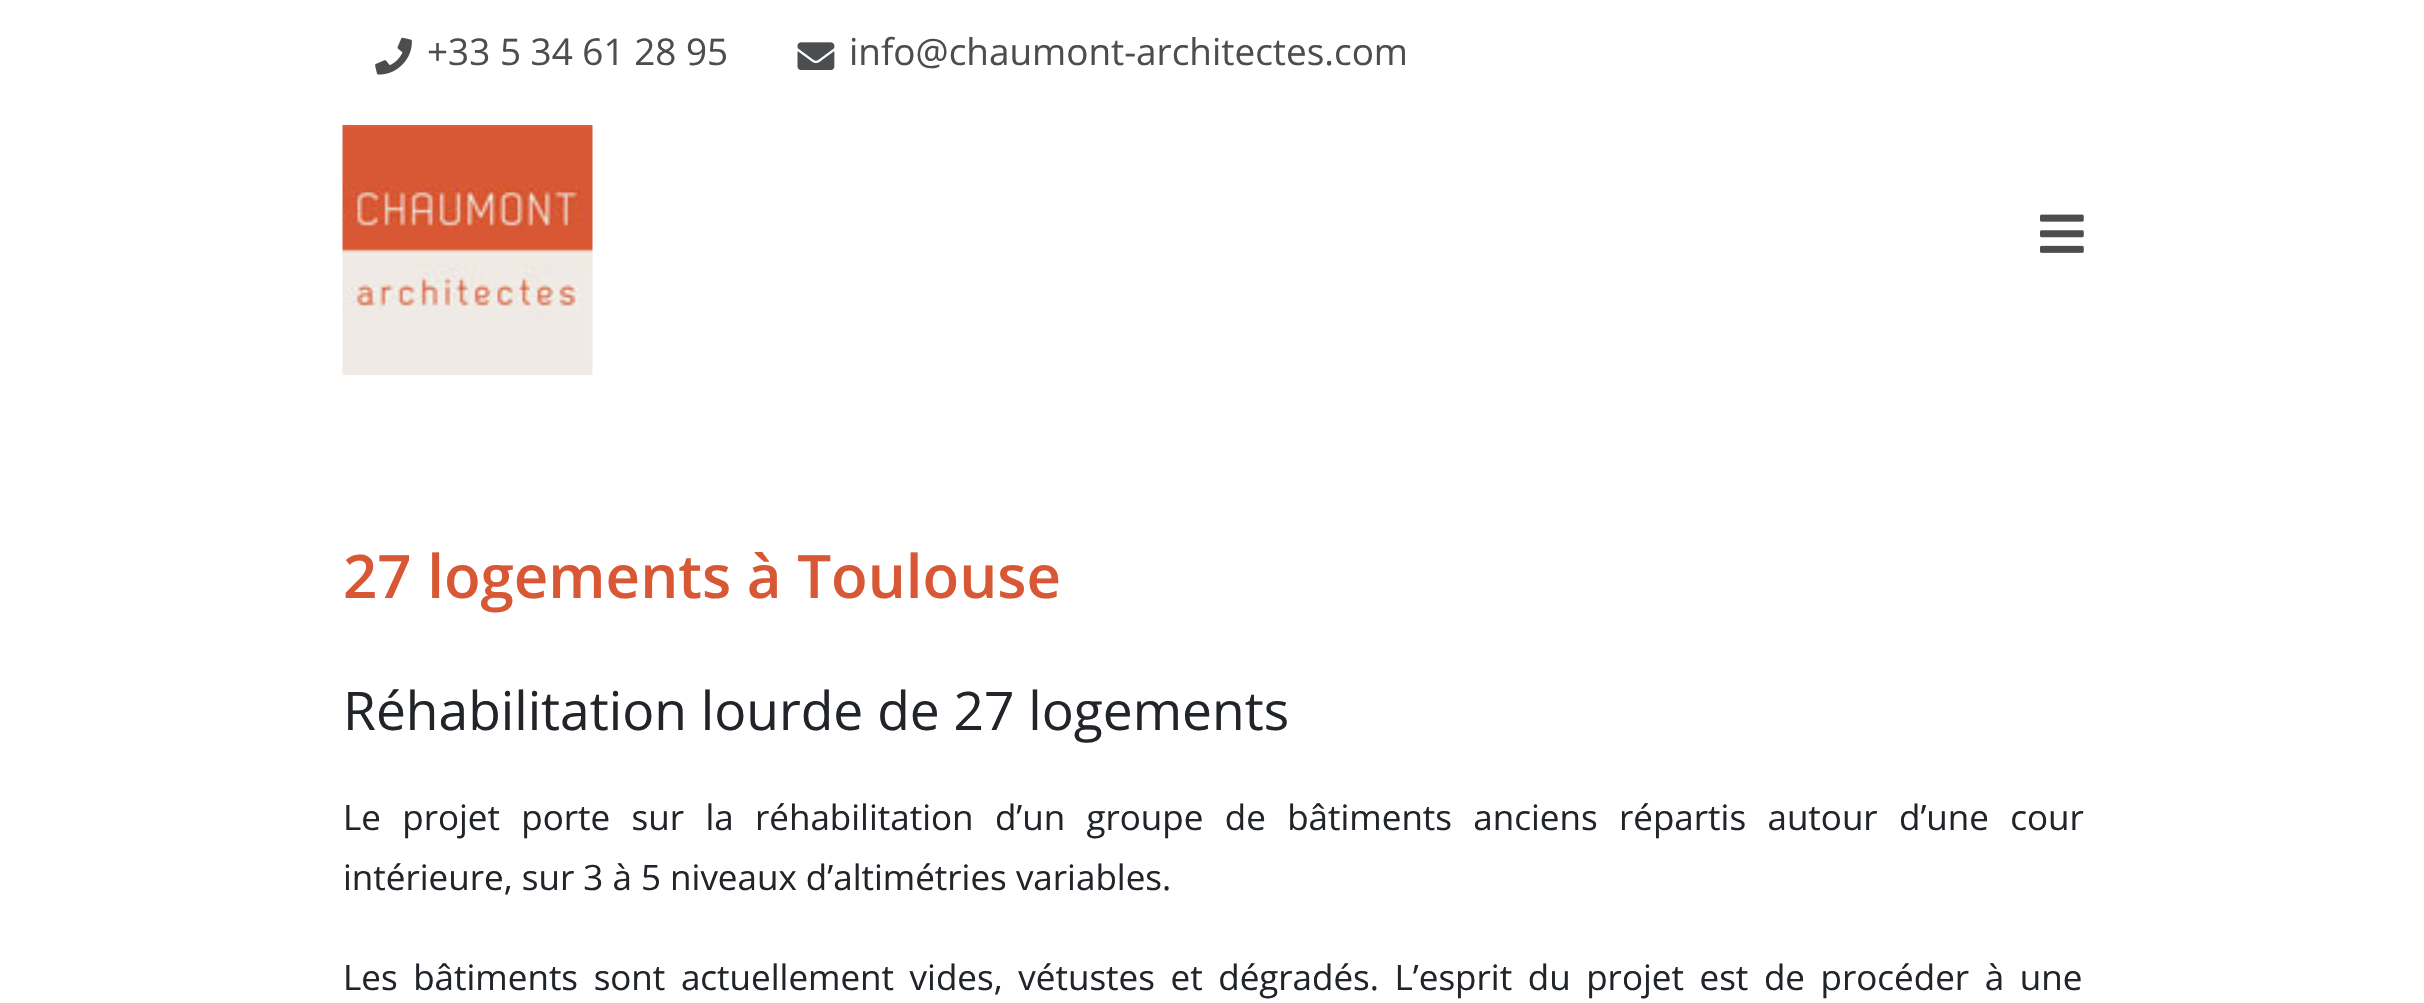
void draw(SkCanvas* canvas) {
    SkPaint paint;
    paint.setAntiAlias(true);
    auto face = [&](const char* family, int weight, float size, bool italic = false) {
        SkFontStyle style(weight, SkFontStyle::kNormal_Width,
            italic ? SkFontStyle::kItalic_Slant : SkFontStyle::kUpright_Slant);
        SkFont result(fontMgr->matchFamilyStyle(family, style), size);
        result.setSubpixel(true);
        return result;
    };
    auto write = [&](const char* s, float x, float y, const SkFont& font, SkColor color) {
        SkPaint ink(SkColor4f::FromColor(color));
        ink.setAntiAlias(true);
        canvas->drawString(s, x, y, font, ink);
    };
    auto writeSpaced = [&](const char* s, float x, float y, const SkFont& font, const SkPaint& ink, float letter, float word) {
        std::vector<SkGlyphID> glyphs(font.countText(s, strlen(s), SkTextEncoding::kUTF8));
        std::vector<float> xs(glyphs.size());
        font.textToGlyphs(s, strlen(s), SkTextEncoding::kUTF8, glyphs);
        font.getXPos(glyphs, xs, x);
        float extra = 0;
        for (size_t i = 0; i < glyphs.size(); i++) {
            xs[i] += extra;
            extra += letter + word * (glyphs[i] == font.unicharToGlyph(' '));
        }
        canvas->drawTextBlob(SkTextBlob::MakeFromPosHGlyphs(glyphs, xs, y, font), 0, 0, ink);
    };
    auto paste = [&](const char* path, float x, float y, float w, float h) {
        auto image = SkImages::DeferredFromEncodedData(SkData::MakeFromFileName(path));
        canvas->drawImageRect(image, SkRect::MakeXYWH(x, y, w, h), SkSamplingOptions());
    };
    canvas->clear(SK_ColorWHITE);
    paste("pic1.png", 375, 37, 37, 38);
    auto kFont1 = face("Open Sans", 400, 36.9f);
    write("+33 5 34 61 28 95", 427, 65, kFont1, SkColorSetRGB(75, 77, 79));
    paste("pic2.png", 797, 42, 38, 28);
    write("info@chaumont-architectes.com", 849, 65, kFont1, SkColorSetRGB(75, 77, 79));
    paste("pic3.png", 342, 125, 251, 250);
    paste("pic4.png", 2040, 214, 44, 39);
    auto kFont2 = face("Open Sans", 600, 60);
    write("27 logements à Toulouse", 343, 598, kFont2, SkColorSetRGB(216, 88, 53));
    auto kFont3 = face("Open Sans", 400, 53.3f);
    write("Réhabilitation lourde de 27 logements", 343, 730, kFont3, SkColorSetRGB(33, 37, 41));
    auto kFont4 = face("Open Sans", 400, 35);
    paint.setColor(SkColorSetRGB(33, 37, 41));
    writeSpaced("Le projet porte sur la réhabilitation d’un groupe de bâtiments anciens répartis autour d’une cour", 343, 830, kFont4, paint, 0, 12.25f);
    write("intérieure, sur 3 à 5 niveaux d’altimétries variables.", 343, 890, kFont4, SkColorSetRGB(33, 37, 41));
    writeSpaced("Les bâtiments sont actuellement vides, vétustes et dégradés. L’esprit du projet est de procéder à une", 343, 990, kFont4, paint, 0, 6.5f);
}
